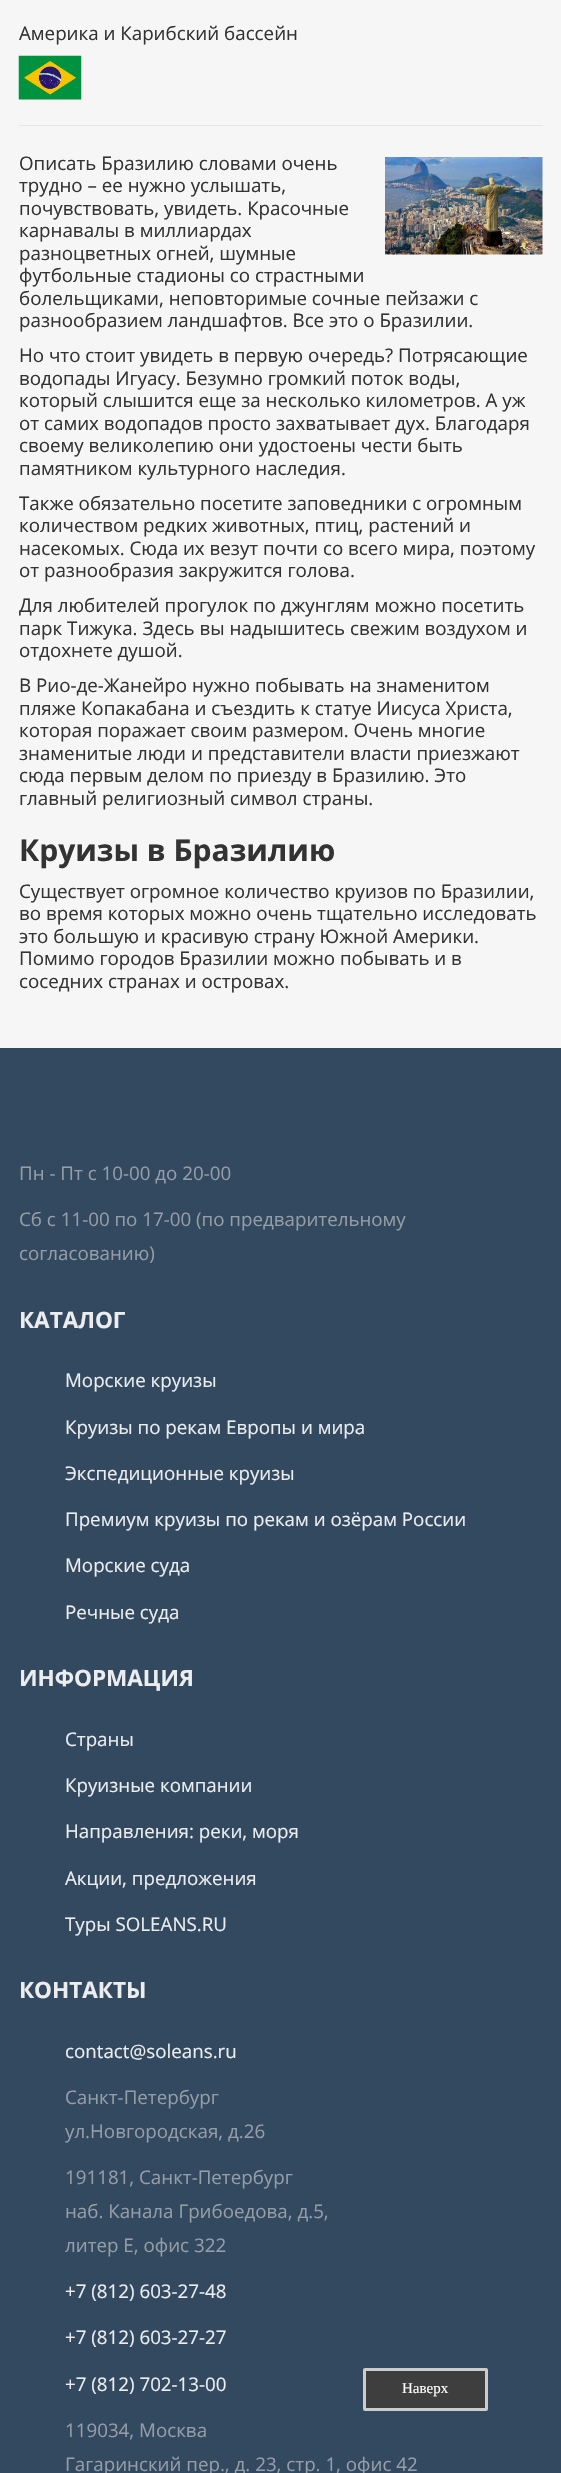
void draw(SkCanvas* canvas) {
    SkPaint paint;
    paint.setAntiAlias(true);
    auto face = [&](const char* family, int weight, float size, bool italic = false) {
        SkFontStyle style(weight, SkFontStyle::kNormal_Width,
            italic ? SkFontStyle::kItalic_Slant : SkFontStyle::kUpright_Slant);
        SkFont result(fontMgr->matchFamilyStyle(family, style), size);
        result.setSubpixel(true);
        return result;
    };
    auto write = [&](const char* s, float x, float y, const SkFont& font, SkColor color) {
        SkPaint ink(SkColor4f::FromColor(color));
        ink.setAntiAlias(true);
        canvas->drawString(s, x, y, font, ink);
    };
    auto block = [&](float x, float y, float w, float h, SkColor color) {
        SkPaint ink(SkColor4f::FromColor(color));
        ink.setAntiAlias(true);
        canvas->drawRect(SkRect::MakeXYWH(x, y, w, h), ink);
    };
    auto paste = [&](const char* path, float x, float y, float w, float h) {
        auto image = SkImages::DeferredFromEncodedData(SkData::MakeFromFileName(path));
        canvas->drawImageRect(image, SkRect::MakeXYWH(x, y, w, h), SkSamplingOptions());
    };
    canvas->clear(SkColorSetRGB(246, 246, 246));
    auto kFont1 = face("Open Sans", 400, 18.75f);
    write("Америка и Карибский бассейн", 19, 40, kFont1, SkColorSetRGB(51, 51, 51));
    paste("pic1.png", 18, 55, 64, 45);
    block(19, 125, 524, 1, SkColorSetRGB(230, 230, 230));
    write("Описать Бразилию словами очень", 19, 170, kFont1, SkColorSetRGB(51, 51, 51));
    write("трудно – ее нужно услышать,", 19, 192, kFont1, SkColorSetRGB(51, 51, 51));
    write("почувствовать, увидеть. Красочные", 19, 215, kFont1, SkColorSetRGB(51, 51, 51));
    write("карнавалы в миллиардах", 19, 237, kFont1, SkColorSetRGB(51, 51, 51));
    write("разноцветных огней, шумные", 19, 260, kFont1, SkColorSetRGB(51, 51, 51));
    write("футбольные стадионы со страстными", 19, 282, kFont1, SkColorSetRGB(51, 51, 51));
    write("болельщиками, неповторимые сочные пейзажи с", 19, 305, kFont1, SkColorSetRGB(51, 51, 51));
    write("разнообразием ландшафтов. Все это о Бразилии.", 19, 327, kFont1, SkColorSetRGB(51, 51, 51));
    paste("pic2.png", 385, 157, 158, 98);
    write("Но что стоит увидеть в первую очередь? Потрясающие", 19, 362, kFont1, SkColorSetRGB(51, 51, 51));
    write("водопады Игуасу. Безумно громкий поток воды,", 19, 385, kFont1, SkColorSetRGB(51, 51, 51));
    write("который слышится еще за несколько километров. А уж", 19, 407, kFont1, SkColorSetRGB(51, 51, 51));
    write("от самих водопадов просто захватывает дух. Благодаря", 19, 430, kFont1, SkColorSetRGB(51, 51, 51));
    write("своему великолепию они удостоены чести быть", 19, 452, kFont1, SkColorSetRGB(51, 51, 51));
    write("памятником культурного наследия.", 19, 475, kFont1, SkColorSetRGB(51, 51, 51));
    write("Также обязательно посетите заповедники с огромным", 19, 510, kFont1, SkColorSetRGB(51, 51, 51));
    write("количеством редких животных, птиц, растений и", 19, 532, kFont1, SkColorSetRGB(51, 51, 51));
    write("насекомых. Сюда их везут почти со всего мира, поэтому", 19, 555, kFont1, SkColorSetRGB(51, 51, 51));
    write("от разнообразия закружится голова.", 19, 577, kFont1, SkColorSetRGB(51, 51, 51));
    write("Для любителей прогулок по джунглям можно посетить", 19, 612, kFont1, SkColorSetRGB(51, 51, 51));
    write("парк Тижука. Здесь вы надышитесь свежим воздухом и", 19, 635, kFont1, SkColorSetRGB(51, 51, 51));
    write("отдохнете душой.", 19, 657, kFont1, SkColorSetRGB(51, 51, 51));
    write("В Рио-де-Жанейро нужно побывать на знаменитом", 19, 692, kFont1, SkColorSetRGB(51, 51, 51));
    write("пляже Копакабана и съездить к статуе Иисуса Христа,", 19, 715, kFont1, SkColorSetRGB(51, 51, 51));
    write("которая поражает своим размером. Очень многие", 19, 737, kFont1, SkColorSetRGB(51, 51, 51));
    write("знаменитые люди и представители власти приезжают", 19, 760, kFont1, SkColorSetRGB(51, 51, 51));
    write("сюда первым делом по приезду в Бразилию. Это", 19, 782, kFont1, SkColorSetRGB(51, 51, 51));
    write("главный религиозный символ страны.", 19, 805, kFont1, SkColorSetRGB(51, 51, 51));
    auto kFont2 = face("Open Sans", 700, 30);
    write("Круизы в Бразилию", 19, 861, kFont2, SkColorSetRGB(51, 51, 51));
    write("Существует огромное количество круизов по Бразилии,", 19, 898, kFont1, SkColorSetRGB(51, 51, 51));
    write("во время которых можно очень тщательно исследовать", 19, 920, kFont1, SkColorSetRGB(51, 51, 51));
    write("это большую и красивую страну Южной Америки.", 19, 943, kFont1, SkColorSetRGB(51, 51, 51));
    write("Помимо городов Бразилии можно побывать и в", 19, 965, kFont1, SkColorSetRGB(51, 51, 51));
    write("соседних странах и островах.", 19, 988, kFont1, SkColorSetRGB(51, 51, 51));
    block(0, 1048, 561, 1425, SkColorSetRGB(51, 73, 96));
    write("Пн - Пт с 10-00 до 20-00", 19, 1180, kFont1, SkColorSetRGB(149, 157, 167));
    write("Сб с 11-00 по 17-00 (по предварительному", 19, 1226, kFont1, SkColorSetRGB(149, 157, 167));
    write("согласованию)", 19, 1260, kFont1, SkColorSetRGB(149, 157, 167));
    auto kFont3 = face("Open Sans", 700, 22.5f);
    write("КАТАЛОГ", 19, 1328, kFont3, SkColorSetRGB(235, 237, 239));
    write("Морские круизы", 65, 1387, kFont1, SkColorSetRGB(235, 237, 239));
    write("Круизы по рекам Европы и мира", 65, 1434, kFont1, SkColorSetRGB(235, 237, 239));
    write("Экспедиционные круизы", 65, 1480, kFont1, SkColorSetRGB(235, 237, 239));
    write("Премиум круизы по рекам и озёрам России", 65, 1526, kFont1, SkColorSetRGB(235, 237, 239));
    write("Морские суда", 65, 1572, kFont1, SkColorSetRGB(235, 237, 239));
    write("Речные суда", 65, 1619, kFont1, SkColorSetRGB(235, 237, 239));
    write("ИНФОРМАЦИЯ", 19, 1686, kFont3, SkColorSetRGB(235, 237, 239));
    write("Страны", 65, 1746, kFont1, SkColorSetRGB(235, 237, 239));
    write("Круизные компании", 65, 1792, kFont1, SkColorSetRGB(235, 237, 239));
    write("Направления: реки, моря", 65, 1838, kFont1, SkColorSetRGB(235, 237, 239));
    write("Акции, предложения", 65, 1885, kFont1, SkColorSetRGB(235, 237, 239));
    write("Туры SOLEANS.RU", 65, 1931, kFont1, SkColorSetRGB(235, 237, 239));
    write("КОНТАКТЫ", 19, 1998, kFont3, SkColorSetRGB(235, 237, 239));
    write("contact@soleans.ru", 65, 2058, kFont1, SkColorSetRGB(235, 237, 239));
    write("Санкт-Петербург", 65, 2104, kFont1, SkColorSetRGB(149, 157, 167));
    write("ул.Новгородская, д.26", 65, 2138, kFont1, SkColorSetRGB(149, 157, 167));
    write("191181, Санкт-Петербург", 65, 2184, kFont1, SkColorSetRGB(149, 157, 167));
    write("наб. Канала Грибоедова, д.5,", 65, 2218, kFont1, SkColorSetRGB(149, 157, 167));
    write("литер Е, офис 322", 65, 2252, kFont1, SkColorSetRGB(149, 157, 167));
    write("+7 (812) 603-27-48", 65, 2298, kFont1, SkColorSetRGB(235, 237, 239));
    write("+7 (812) 603-27-27", 65, 2344, kFont1, SkColorSetRGB(235, 237, 239));
    write("+7 (812) 702-13-00", 65, 2391, kFont1, SkColorSetRGB(235, 237, 239));
    write("119034, Москва", 65, 2437, kFont1, SkColorSetRGB(149, 157, 167));
    write("Гагаринский пер., д. 23, стр. 1, офис 42", 65, 2471, kFont1, SkColorSetRGB(149, 157, 167));
    paint.setColor(SkColorSetRGB(62, 62, 62));
    canvas->drawRoundRect(SkRect::MakeXYWH(364.5f, 2369.5f, 122, 40), 0.5f, 0.5f, paint);
    paint.setStyle(SkPaint::kStroke_Style);
    paint.setStrokeWidth(3);
    paint.setColor(SkColorSetRGB(204, 204, 204));
    canvas->drawRoundRect(SkRect::MakeXYWH(364.5f, 2369.5f, 122, 40), 0.5f, 0.5f, paint);
    auto kFont4 = face("Liberation Serif", 400, 15);
    write("Наверх", 402, 2393, kFont4, SK_ColorWHITE);
}
